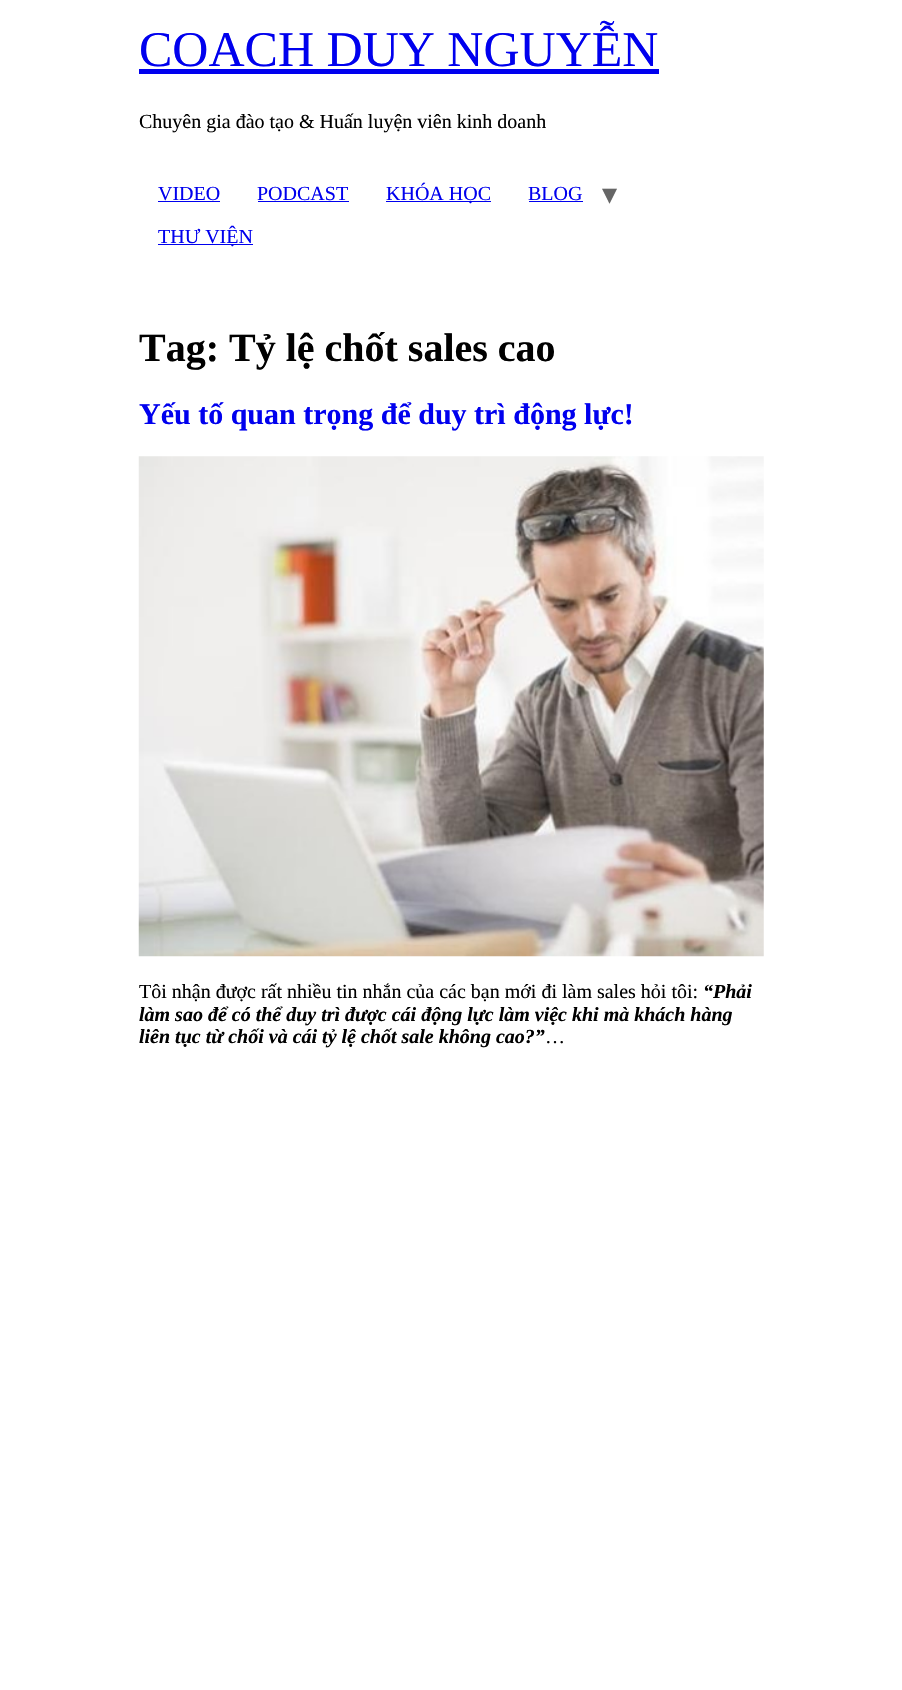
void draw(SkCanvas* canvas) {
    SkPaint paint;
    paint.setAntiAlias(true);
    auto face = [&](const char* family, int weight, float size, bool italic = false) {
        SkFontStyle style(weight, SkFontStyle::kNormal_Width,
            italic ? SkFontStyle::kItalic_Slant : SkFontStyle::kUpright_Slant);
        SkFont result(fontMgr->matchFamilyStyle(family, style), size);
        result.setSubpixel(true);
        return result;
    };
    auto write = [&](const char* s, float x, float y, const SkFont& font, SkColor color) {
        SkPaint ink(SkColor4f::FromColor(color));
        ink.setAntiAlias(true);
        canvas->drawString(s, x, y, font, ink);
    };
    auto block = [&](float x, float y, float w, float h, SkColor color) {
        SkPaint ink(SkColor4f::FromColor(color));
        ink.setAntiAlias(true);
        canvas->drawRect(SkRect::MakeXYWH(x, y, w, h), ink);
    };
    auto paste = [&](const char* path, float x, float y, float w, float h) {
        auto image = SkImages::DeferredFromEncodedData(SkData::MakeFromFileName(path));
        canvas->drawImageRect(image, SkRect::MakeXYWH(x, y, w, h), SkSamplingOptions());
    };
    canvas->clear(SK_ColorWHITE);
    auto kFont1 = face("Liberation Serif", 400, 50);
    write("COACH DUY NGUYỄN", 139, 66, kFont1, SkColorSetRGB(0, 0, 238));
    block(139, 69, 520, 5, SkColorSetRGB(0, 0, 238));
    auto kFont2 = face("Liberation Serif", 400, 20);
    write("Chuyên gia đào tạo & Huấn luyện viên kinh doanh", 139, 128, kFont2, SK_ColorBLACK);
    write("VIDEO", 158, 200, kFont2, SkColorSetRGB(0, 0, 238));
    block(158, 201, 62, 1, SkColorSetRGB(0, 0, 238));
    write("PODCAST", 257, 200, kFont2, SkColorSetRGB(0, 0, 238));
    block(258, 201, 91, 1, SkColorSetRGB(0, 0, 238));
    block(386, 201, 105, 1, SkColorSetRGB(0, 0, 238));
    write("KHÓA HỌC", 386, 200, kFont2, SkColorSetRGB(0, 0, 238));
    write("BLOG", 528, 200, kFont2, SkColorSetRGB(0, 0, 238));
    block(529, 201, 54, 1, SkColorSetRGB(0, 0, 238));
    auto kFont3 = face("DejaVu Sans", 400, 30);
    write("▾", 602, 204, kFont3, SkColorSetRGB(102, 102, 102));
    block(158, 244, 95, 1, SkColorSetRGB(0, 0, 238));
    write("THƯ VIỆN", 158, 243, kFont2, SkColorSetRGB(0, 0, 238));
    auto kFont4 = face("Liberation Serif", 700, 40);
    write("Tag: Tỷ lệ chốt sales cao", 139, 361, kFont4, SK_ColorBLACK);
    auto kFont5 = face("Liberation Serif", 700, 30);
    write("Yếu tố quan trọng để duy trì động lực!", 139, 424, kFont5, SkColorSetRGB(0, 0, 238));
    paste("pic1.png", 138, 456, 626, 501);
    write("Tôi nhận được rất nhiều tin nhắn của các bạn mới đi làm sales hỏi tôi:", 139, 998, kFont2, SK_ColorBLACK);
    auto kFont6 = face("Liberation Serif", 700, 20, true);
    write("“Phải", 703, 998, kFont6, SK_ColorBLACK);
    write("làm sao để có thể duy trì được cái động lực làm việc khi mà khách hàng", 139, 1021, kFont6, SK_ColorBLACK);
    write("liên tục từ chối và cái tỷ lệ chốt sale không cao?”", 139, 1043, kFont6, SK_ColorBLACK);
    write("…", 545, 1043, kFont2, SK_ColorBLACK);
}
